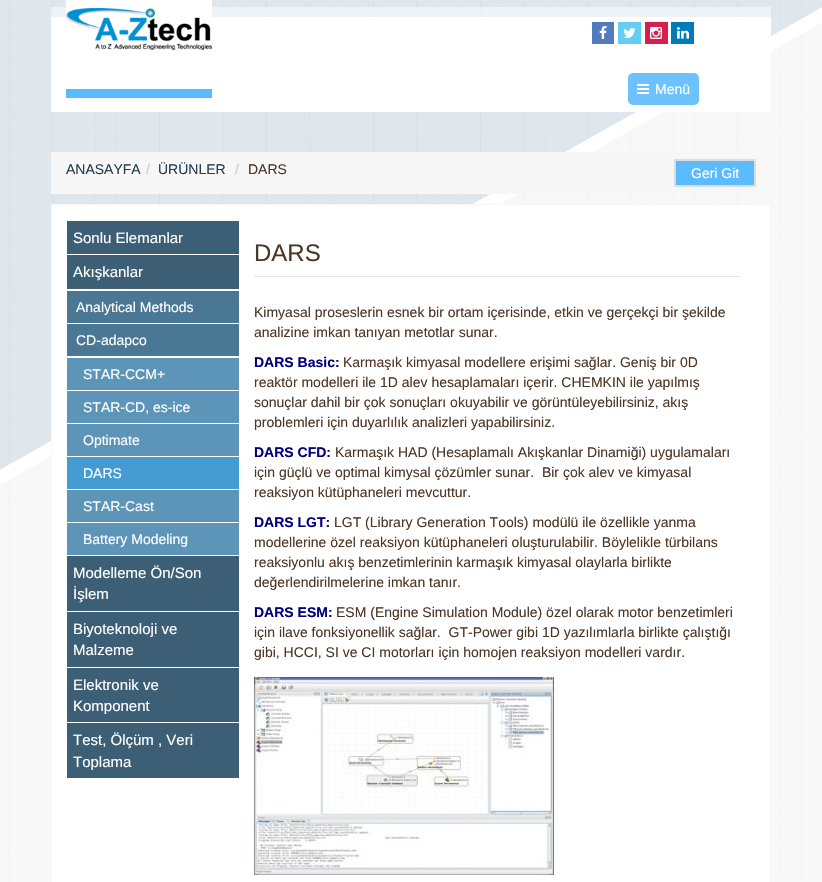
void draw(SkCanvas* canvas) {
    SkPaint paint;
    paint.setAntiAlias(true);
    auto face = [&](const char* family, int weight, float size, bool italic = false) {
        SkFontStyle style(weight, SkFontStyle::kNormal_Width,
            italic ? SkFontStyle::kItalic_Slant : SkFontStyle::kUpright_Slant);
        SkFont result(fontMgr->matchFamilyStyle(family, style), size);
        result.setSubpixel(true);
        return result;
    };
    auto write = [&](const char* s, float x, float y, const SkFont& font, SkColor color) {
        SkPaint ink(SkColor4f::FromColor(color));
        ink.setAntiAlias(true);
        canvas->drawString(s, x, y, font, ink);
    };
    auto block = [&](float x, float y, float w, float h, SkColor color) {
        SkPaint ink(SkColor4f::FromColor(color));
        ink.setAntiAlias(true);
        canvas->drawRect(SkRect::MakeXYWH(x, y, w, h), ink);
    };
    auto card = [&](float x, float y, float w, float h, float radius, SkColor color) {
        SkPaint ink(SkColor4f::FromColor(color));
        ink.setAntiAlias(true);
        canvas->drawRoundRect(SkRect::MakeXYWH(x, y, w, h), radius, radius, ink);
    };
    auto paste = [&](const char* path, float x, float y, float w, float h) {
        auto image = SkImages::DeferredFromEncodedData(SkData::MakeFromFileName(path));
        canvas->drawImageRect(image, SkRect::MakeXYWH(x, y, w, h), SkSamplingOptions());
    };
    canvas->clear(SK_ColorWHITE);
    paste("pic1.png", 0, 0, 822, 882);
    paste("pic2.png", 51, 7, 720, 105);
    block(66, 0, 146, 17, SK_ColorWHITE);
    block(66, 89, 146, 9, SkColorSetRGB(89, 187, 253));
    paste("pic3.png", 66, 8, 146, 42);
    block(592, 22, 22, 22, SkColorSetRGB(80, 124, 189));
    paste("pic4.png", 599, 26, 8, 13);
    block(618, 22, 23, 22, SkColorSetRGB(99, 206, 242));
    paste("pic5.png", 623, 28, 13, 10);
    block(645, 22, 23, 22, SkColorSetRGB(216, 30, 77));
    paste("pic6.png", 650, 27, 12, 12);
    block(671, 22, 23, 22, SkColorSetRGB(0, 123, 181));
    paste("pic7.png", 677, 27, 12, 12);
    card(628, 73, 71, 32, 5, SkColorSetRGB(109, 194, 253));
    paste("pic8.png", 637, 84, 12, 10);
    auto kFont1 = face("Liberation Sans", 400, 14);
    write("Menü", 655, 94, kFont1, SK_ColorWHITE);
    block(51, 152, 708, 42, SkColorSetRGB(247, 247, 247));
    write("ANASAYFA", 66, 174, kFont1, SkColorSetRGB(36, 61, 77));
    write("/", 146, 174, kFont1, SkColorSetRGB(204, 204, 204));
    write("ÜRÜNLER", 158, 174, kFont1, SkColorSetRGB(36, 61, 77));
    write("/", 235, 174, kFont1, SkColorSetRGB(204, 204, 204));
    write("DARS", 248, 174, kFont1, SkColorSetRGB(77, 54, 37));
    paint.setColor(SkColorSetRGB(91, 187, 252));
    canvas->drawRect(SkRect::MakeXYWH(675, 160, 80, 26), paint);
    paint.setStyle(SkPaint::kStroke_Style);
    paint.setStrokeWidth(2);
    paint.setColor(SkColorSetRGB(221, 221, 221));
    canvas->drawRect(SkRect::MakeXYWH(675, 160, 80, 26), paint);
    write("Geri Git", 691, 178, kFont1, SK_ColorWHITE);
    paint.setStyle(SkPaint::kFill_Style);
    paint.setColor(SK_ColorWHITE);
    canvas->drawRect(SkRect::MakeXYWH(51.5f, 204.5f, 719, 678), paint);
    paint.setStyle(SkPaint::kStroke_Style);
    paint.setStrokeWidth(1);
    paint.setColor(SkColorSetRGB(247, 247, 247));
    canvas->drawRect(SkRect::MakeXYWH(51.5f, 204.5f, 719, 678), paint);
    block(67, 221, 172, 33, SkColorSetRGB(60, 95, 117));
    auto kFont2 = face("Liberation Sans", 400, 15);
    write("Sonlu Elemanlar", 73, 243, kFont2, SK_ColorWHITE);
    block(67, 255, 172, 34, SkColorSetRGB(60, 95, 117));
    write("Akışkanlar", 73, 277, kFont2, SK_ColorWHITE);
    block(67, 291, 172, 32, SkColorSetRGB(73, 119, 148));
    write("Analytical Methods", 76, 312, kFont1, SK_ColorWHITE);
    block(67, 324, 172, 32, SkColorSetRGB(73, 119, 148));
    write("CD-adapco", 76, 345, kFont1, SK_ColorWHITE);
    block(67, 358, 172, 32, SkColorSetRGB(93, 149, 185));
    write("STAR-CCM+", 83, 379, kFont1, SK_ColorWHITE);
    block(67, 391, 172, 32, SkColorSetRGB(93, 149, 185));
    write("STAR-CD, es-ice", 83, 412, kFont1, SK_ColorWHITE);
    block(67, 424, 172, 32, SkColorSetRGB(93, 149, 185));
    write("Optimate", 83, 445, kFont1, SK_ColorWHITE);
    block(67, 457, 172, 32, SkColorSetRGB(68, 155, 210));
    write("DARS", 83, 478, kFont1, SK_ColorWHITE);
    block(67, 490, 172, 32, SkColorSetRGB(93, 149, 185));
    write("STAR-Cast", 83, 511, kFont1, SK_ColorWHITE);
    block(67, 523, 172, 32, SkColorSetRGB(93, 149, 185));
    write("Battery Modeling", 83, 544, kFont1, SK_ColorWHITE);
    block(67, 556, 172, 55, SkColorSetRGB(60, 95, 117));
    write("Modelleme Ön/Son", 73, 578, kFont2, SK_ColorWHITE);
    write("İşlem", 73, 599, kFont2, SK_ColorWHITE);
    block(67, 612, 172, 55, SkColorSetRGB(60, 95, 117));
    write("Biyoteknoloji ve", 73, 634, kFont2, SK_ColorWHITE);
    write("Malzeme", 73, 655, kFont2, SK_ColorWHITE);
    block(67, 668, 172, 54, SkColorSetRGB(60, 95, 117));
    write("Elektronik ve", 73, 690, kFont2, SK_ColorWHITE);
    write("Komponent", 73, 711, kFont2, SK_ColorWHITE);
    block(67, 723, 172, 55, SkColorSetRGB(60, 95, 117));
    write("Test, Ölçüm , Veri", 73, 745, kFont2, SK_ColorWHITE);
    write("Toplama", 73, 767, kFont2, SK_ColorWHITE);
    block(254, 276, 486, 1, SkColorSetRGB(223, 230, 236));
    auto kFont3 = face("Liberation Sans", 400, 24);
    write("DARS", 254, 261, kFont3, SkColorSetRGB(77, 54, 37));
    write("Kimyasal proseslerin esnek bir ortam içerisinde, etkin ve gerçekçi bir şekilde", 254, 317, kFont1, SkColorSetRGB(77, 54, 37));
    write("analizine imkan tanıyan metotlar sunar.", 254, 337, kFont1, SkColorSetRGB(77, 54, 37));
    auto kFont4 = face("Liberation Sans", 700, 14);
    write("DARS Basic:", 254, 367, kFont4, SkColorSetRGB(0, 0, 128));
    write("Karmaşık kimyasal modellere erişimi sağlar. Geniş bir 0D", 343, 367, kFont1, SkColorSetRGB(77, 54, 37));
    write("reaktör modelleri ile 1D alev hesaplamaları içerir. CHEMKIN ile yapılmış", 254, 387, kFont1, SkColorSetRGB(77, 54, 37));
    write("sonuçlar dahil bir çok sonuçları okuyabilir ve görüntüleyebilirsiniz, akış", 254, 407, kFont1, SkColorSetRGB(77, 54, 37));
    write("problemleri için duyarlılık analizleri yapabilirsiniz.", 254, 427, kFont1, SkColorSetRGB(77, 54, 37));
    write("DARS CFD:", 254, 457, kFont4, SkColorSetRGB(0, 0, 128));
    write("Karmaşık HAD (Hesaplamalı Akışkanlar Dinamiği) uygulamaları", 335, 457, kFont1, SkColorSetRGB(77, 54, 37));
    write("için güçlü ve optimal kimysal çözümler sunar.  Bir çok alev ve kimyasal", 254, 477, kFont1, SkColorSetRGB(77, 54, 37));
    write("reaksiyon kütüphaneleri mevcuttur.", 254, 497, kFont1, SkColorSetRGB(77, 54, 37));
    write("DARS LGT:", 254, 527, kFont4, SkColorSetRGB(0, 0, 128));
    write("LGT (Library Generation Tools) modülü ile özellikle yanma", 334, 527, kFont1, SkColorSetRGB(77, 54, 37));
    write("modellerine özel reaksiyon kütüphaneleri oluşturulabilir. Böylelikle türbilans", 254, 547, kFont1, SkColorSetRGB(77, 54, 37));
    write("reaksiyonlu akış benzetimlerinin karmaşık kimyasal olaylarla birlikte", 254, 567, kFont1, SkColorSetRGB(77, 54, 37));
    write("değerlendirilmelerine imkan tanır.", 254, 587, kFont1, SkColorSetRGB(77, 54, 37));
    write("DARS ESM:", 254, 617, kFont4, SkColorSetRGB(0, 0, 128));
    write("ESM (Engine Simulation Module) özel olarak motor benzetimleri", 336, 617, kFont1, SkColorSetRGB(77, 54, 37));
    write("için ilave fonksiyonellik sağlar.  GT-Power gibi 1D yazılımlarla birlikte çalıştığı", 254, 637, kFont1, SkColorSetRGB(77, 54, 37));
    write("gibi, HCCI, SI ve CI motorları için homojen reaksiyon modelleri vardır.", 254, 657, kFont1, SkColorSetRGB(77, 54, 37));
    paste("pic9.png", 254, 677, 300, 198);
}
